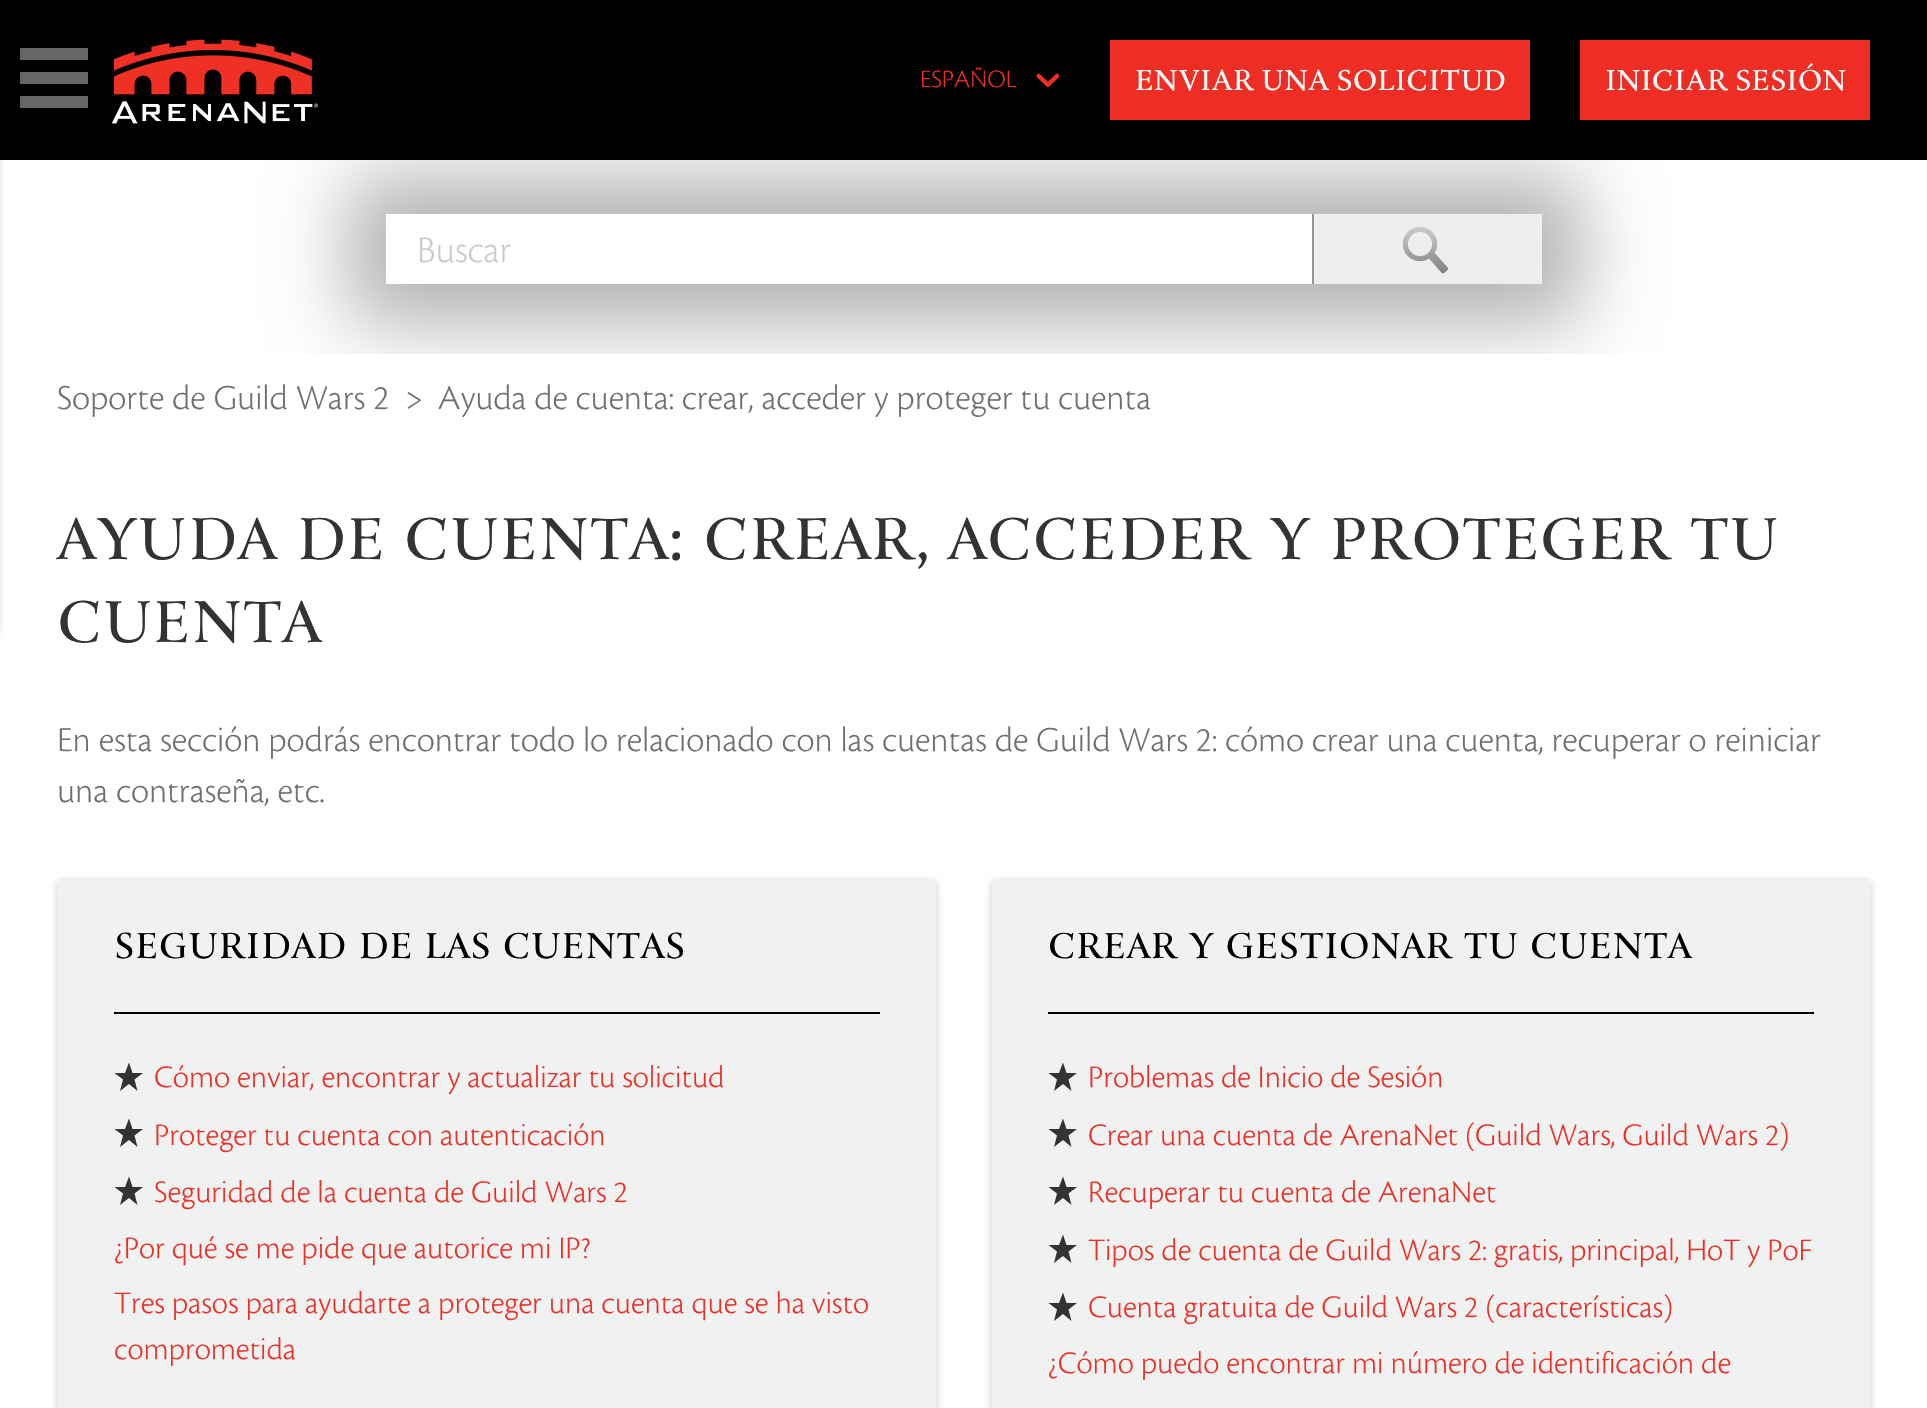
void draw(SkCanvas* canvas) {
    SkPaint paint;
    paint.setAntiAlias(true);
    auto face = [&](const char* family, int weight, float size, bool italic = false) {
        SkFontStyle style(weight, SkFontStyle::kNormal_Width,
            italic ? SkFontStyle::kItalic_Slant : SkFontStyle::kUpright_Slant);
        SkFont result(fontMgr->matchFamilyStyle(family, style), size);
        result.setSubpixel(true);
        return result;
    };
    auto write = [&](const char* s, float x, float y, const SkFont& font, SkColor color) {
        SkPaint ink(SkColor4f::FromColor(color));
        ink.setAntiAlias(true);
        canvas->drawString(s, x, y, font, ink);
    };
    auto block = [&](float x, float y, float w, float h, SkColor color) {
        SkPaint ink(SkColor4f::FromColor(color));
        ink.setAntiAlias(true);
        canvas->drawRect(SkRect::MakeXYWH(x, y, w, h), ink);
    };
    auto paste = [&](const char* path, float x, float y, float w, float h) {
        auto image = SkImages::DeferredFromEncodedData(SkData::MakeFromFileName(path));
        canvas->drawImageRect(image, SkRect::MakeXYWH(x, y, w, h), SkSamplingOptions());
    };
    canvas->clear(SK_ColorWHITE);
    block(0, 0, 1927, 160, SK_ColorBLACK);
    block(20, 48, 68, 12, SkColorSetRGB(102, 102, 102));
    block(20, 72, 68, 12, SkColorSetRGB(102, 102, 102));
    block(20, 96, 68, 12, SkColorSetRGB(102, 102, 102));
    paint.setColor(SkColorSetARGB(51, 0, 0, 0));
    paint.setMaskFilter(SkMaskFilter::MakeBlur(kNormal_SkBlurStyle, 4));
    canvas->drawRect(SkRect::MakeXYWH(-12, 104, 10, 528), paint);
    paint.setMaskFilter(nullptr);
    paste("pic1.png", 111, 39, 208, 85);
    auto kFont1 = face("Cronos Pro", 300, 26);
    write("ESPAÑOL", 920, 87, kFont1, SkColorSetRGB(238, 46, 36));
    paste("pic2.png", 1036, 73, 24, 14);
    block(1110, 40, 420, 80, SkColorSetRGB(238, 46, 36));
    auto kFont2 = face("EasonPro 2", 400, 31.25f);
    write("ENVIAR UNA SOLICITUD", 1135, 90, kFont2, SK_ColorWHITE);
    block(1580, 40, 290, 80, SkColorSetRGB(238, 46, 36));
    write("INICIAR SESIÓN", 1605, 90, kFont2, SK_ColorWHITE);
    canvas->save();
    canvas->clipRect(SkRect::MakeXYWH(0, 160, 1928, 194));
    canvas->clipPath(SkPathBuilder(SkPathFillType::kEvenOdd).moveTo(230, 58).lineTo(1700, 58).lineTo(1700, 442).lineTo(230, 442).close().moveTo(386, 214).lineTo(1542, 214).lineTo(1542, 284).lineTo(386, 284).close().detach(), true);
    paint.setColor(SkColorSetARGB(77, 0, 0, 0));
    paint.setMaskFilter(SkMaskFilter::MakeBlur(kNormal_SkBlurStyle, 39));
    canvas->drawRect(SkRect::MakeXYWH(348, 176, 1234, 148), paint);
    paint.setMaskFilter(nullptr);
    canvas->restore();
    auto kFont3 = face("Cronos Pro", 300, 39);
    write("Buscar", 417, 262, kFont3, SkColorSetRGB(204, 204, 204));
    block(1314, 214, 228, 70, SkColorSetRGB(238, 238, 238));
    paste("pic3.png", 1402, 226, 47, 48);
    block(1312, 214, 2, 70, SkColorSetRGB(149, 149, 149));
    auto kFont4 = face("Cronos Pro", 300, 36.4f);
    write("Soporte de Guild Wars 2", 57, 409, kFont4, SkColorSetRGB(112, 112, 112));
    write(">", 404, 409, kFont4, SkColorSetRGB(112, 112, 112));
    write("Ayuda de cuenta: crear, acceder y proteger tu cuenta", 438, 409, kFont4, SkColorSetRGB(112, 112, 112));
    auto kFont5 = face("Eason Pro", 400, 63.7f);
    write("Ayuda de cuenta: crear, acceder y proteger tu", 57, 559, kFont5, SkColorSetRGB(51, 51, 51));
    write("cuenta", 57, 642, kFont5, SkColorSetRGB(51, 51, 51));
    write("En esta sección podrás encontrar todo lo relacionado con las cuentas de Guild Wars 2: cómo crear una cuenta, recuperar o reiniciar", 57, 751, kFont4, SkColorSetRGB(112, 112, 112));
    write("una contraseña, etc.", 57, 802, kFont4, SkColorSetRGB(112, 112, 112));
    paint.setColor(SkColorSetARGB(51, 0, 0, 0));
    paint.setMaskFilter(SkMaskFilter::MakeBlur(kNormal_SkBlurStyle, 4));
    canvas->drawRect(SkRect::MakeXYWH(58, 882, 878, 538), paint);
    paint.setMaskFilter(nullptr);
    block(58, 878, 878, 530, SkColorSetRGB(240, 242, 242));
    block(114, 1012, 766, 2, SK_ColorBLACK);
    auto kFont6 = face("Eason Pro", 400, 39);
    write("Seguridad de las Cuentas", 114, 958, kFont6, SK_ColorBLACK);
    paint.setColor(SkColorSetRGB(51, 51, 51));
    canvas->drawPath(SkPathBuilder().moveTo(129, 1062.5f).lineTo(132.5f, 1073).lineTo(143, 1073).lineTo(134.5f, 1079.5f).lineTo(137.5f, 1091).lineTo(129, 1084).lineTo(120, 1091).lineTo(123, 1079.5f).lineTo(114.5f, 1073).lineTo(125, 1073).close().detach(), paint);
    auto kFont7 = face("Cronos Pro", 300, 32.5f);
    write("Cómo enviar, encontrar y actualizar tu solicitud", 154, 1087, kFont7, SkColorSetRGB(238, 46, 36));
    canvas->drawPath(SkPathBuilder().moveTo(129, 1118.5f).lineTo(132.5f, 1129).lineTo(143, 1129).lineTo(134.5f, 1135.5f).lineTo(137.5f, 1147).lineTo(129, 1140).lineTo(120, 1147).lineTo(123, 1135.5f).lineTo(114.5f, 1129).lineTo(125, 1129).close().detach(), paint);
    write("Proteger tu cuenta con autenticación", 154, 1145, kFont7, SkColorSetRGB(238, 46, 36));
    canvas->drawPath(SkPathBuilder().moveTo(129, 1176.5f).lineTo(132.5f, 1187).lineTo(143, 1187).lineTo(134.5f, 1193.5f).lineTo(137.5f, 1205).lineTo(129, 1198).lineTo(120, 1205).lineTo(123, 1193.5f).lineTo(114.5f, 1187).lineTo(125, 1187).close().detach(), paint);
    write("Seguridad de la cuenta de Guild Wars 2", 154, 1202, kFont7, SkColorSetRGB(238, 46, 36));
    write("¿Por qué se me pide que autorice mi IP?", 114, 1258, kFont7, SkColorSetRGB(238, 46, 36));
    write("Tres pasos para ayudarte a proteger una cuenta que se ha visto", 114, 1313, kFont7, SkColorSetRGB(238, 46, 36));
    write("comprometida", 114, 1359, kFont7, SkColorSetRGB(238, 46, 36));
    paint.setColor(SkColorSetARGB(51, 0, 0, 0));
    paint.setMaskFilter(SkMaskFilter::MakeBlur(kNormal_SkBlurStyle, 4));
    canvas->drawRect(SkRect::MakeXYWH(992, 882, 878, 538), paint);
    paint.setMaskFilter(nullptr);
    block(992, 878, 878, 530, SkColorSetRGB(240, 242, 242));
    block(1048, 1012, 766, 2, SK_ColorBLACK);
    write("Crear y Gestionar tu Cuenta", 1048, 958, kFont6, SK_ColorBLACK);
    paint.setColor(SkColorSetRGB(51, 51, 51));
    canvas->drawPath(SkPathBuilder().moveTo(1063, 1062.5f).lineTo(1066.5f, 1073).lineTo(1077, 1073).lineTo(1068.5f, 1079.5f).lineTo(1071.5f, 1091).lineTo(1063, 1084).lineTo(1054, 1091).lineTo(1057, 1079.5f).lineTo(1048.5f, 1073).lineTo(1059, 1073).close().detach(), paint);
    write("Problemas de Inicio de Sesión", 1088, 1087, kFont7, SkColorSetRGB(238, 46, 36));
    canvas->drawPath(SkPathBuilder().moveTo(1063, 1118.5f).lineTo(1066.5f, 1129).lineTo(1077, 1129).lineTo(1068.5f, 1135.5f).lineTo(1071.5f, 1147).lineTo(1063, 1140).lineTo(1054, 1147).lineTo(1057, 1135.5f).lineTo(1048.5f, 1129).lineTo(1059, 1129).close().detach(), paint);
    write("Crear una cuenta de ArenaNet (Guild Wars, Guild Wars 2)", 1088, 1145, kFont7, SkColorSetRGB(238, 46, 36));
    canvas->drawPath(SkPathBuilder().moveTo(1063, 1176.5f).lineTo(1066.5f, 1187).lineTo(1077, 1187).lineTo(1068.5f, 1193.5f).lineTo(1071.5f, 1205).lineTo(1063, 1198).lineTo(1054, 1205).lineTo(1057, 1193.5f).lineTo(1048.5f, 1187).lineTo(1059, 1187).close().detach(), paint);
    write("Recuperar tu cuenta de ArenaNet", 1088, 1202, kFont7, SkColorSetRGB(238, 46, 36));
    canvas->drawPath(SkPathBuilder().moveTo(1063, 1234.5f).lineTo(1066.5f, 1245).lineTo(1077, 1245).lineTo(1068.5f, 1251.5f).lineTo(1071.5f, 1263).lineTo(1063, 1256).lineTo(1054, 1263).lineTo(1057, 1251.5f).lineTo(1048.5f, 1245).lineTo(1059, 1245).close().detach(), paint);
    write("Tipos de cuenta de Guild Wars 2: gratis, principal, HoT y PoF", 1088, 1260, kFont7, SkColorSetRGB(238, 46, 36));
    canvas->drawPath(SkPathBuilder().moveTo(1063, 1292.5f).lineTo(1066.5f, 1303).lineTo(1077, 1303).lineTo(1068.5f, 1309.5f).lineTo(1071.5f, 1321).lineTo(1063, 1314).lineTo(1054, 1321).lineTo(1057, 1309.5f).lineTo(1048.5f, 1303).lineTo(1059, 1303).close().detach(), paint);
    write("Cuenta gratuita de Guild Wars 2 (características)", 1088, 1317, kFont7, SkColorSetRGB(238, 46, 36));
    write("¿Cómo puedo encontrar mi número de identificación de", 1048, 1373, kFont7, SkColorSetRGB(238, 46, 36));
}
